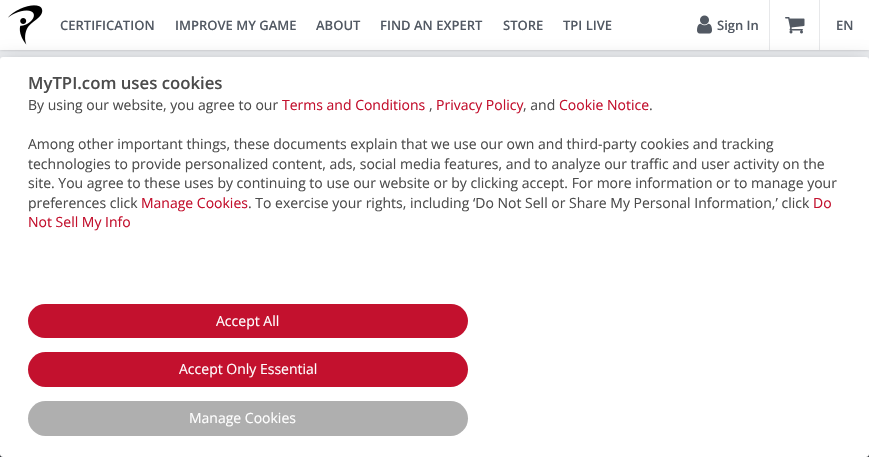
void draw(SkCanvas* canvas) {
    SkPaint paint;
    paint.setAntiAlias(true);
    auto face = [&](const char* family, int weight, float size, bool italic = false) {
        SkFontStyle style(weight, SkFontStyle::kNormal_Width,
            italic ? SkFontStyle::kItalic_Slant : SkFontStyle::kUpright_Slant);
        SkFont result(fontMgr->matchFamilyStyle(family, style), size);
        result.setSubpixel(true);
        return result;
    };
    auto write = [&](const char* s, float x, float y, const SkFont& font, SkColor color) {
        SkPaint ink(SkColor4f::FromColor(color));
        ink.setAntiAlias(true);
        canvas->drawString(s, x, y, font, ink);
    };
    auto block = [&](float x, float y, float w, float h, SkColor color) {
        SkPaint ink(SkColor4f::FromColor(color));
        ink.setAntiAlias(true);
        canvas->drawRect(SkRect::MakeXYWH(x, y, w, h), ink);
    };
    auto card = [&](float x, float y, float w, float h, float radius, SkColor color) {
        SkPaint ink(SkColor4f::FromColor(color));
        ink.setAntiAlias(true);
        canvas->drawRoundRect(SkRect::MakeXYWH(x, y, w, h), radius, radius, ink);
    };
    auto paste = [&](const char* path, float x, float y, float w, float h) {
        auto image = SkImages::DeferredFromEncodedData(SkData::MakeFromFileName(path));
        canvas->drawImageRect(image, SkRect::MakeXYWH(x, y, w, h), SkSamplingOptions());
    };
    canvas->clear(SkColorSetRGB(236, 238, 241));
    paint.setColor(SkColorSetARGB(56, 0, 0, 0));
    paint.setMaskFilter(SkMaskFilter::MakeBlur(kNormal_SkBlurStyle, 1.5f));
    canvas->drawRect(SkRect::MakeXYWH(0, 0, 869, 50), paint);
    paint.setMaskFilter(nullptr);
    block(0, 0, 869, 50, SK_ColorWHITE);
    paste("pic1.png", 8, 5, 35, 40);
    auto kFont1 = face("Open Sans", 600, 13);
    write("CERTIFICATION", 60, 30, kFont1, SkColorSetRGB(82, 89, 99));
    write("IMPROVE MY GAME", 175, 30, kFont1, SkColorSetRGB(82, 89, 99));
    write("ABOUT", 316, 30, kFont1, SkColorSetRGB(82, 89, 99));
    write("FIND AN EXPERT", 380, 30, kFont1, SkColorSetRGB(82, 89, 99));
    write("STORE", 503, 30, kFont1, SkColorSetRGB(82, 89, 99));
    write("TPI LIVE", 563, 30, kFont1, SkColorSetRGB(82, 89, 99));
    paste("pic2.png", 697, 15, 15, 19);
    write("Sign In", 717, 30, kFont1, SkColorSetRGB(82, 89, 99));
    block(769, 0, 1, 50, SkColorSetRGB(231, 232, 234));
    paste("pic3.png", 785, 17, 20, 17);
    block(819, 0, 1, 50, SkColorSetRGB(231, 232, 234));
    write("EN", 836, 30, kFont1, SkColorSetRGB(82, 89, 99));
    block(0, 454, 869, 3, SkColorSetRGB(42, 47, 55));
    paint.setColor(SkColorSetARGB(77, 0, 0, 0));
    paint.setMaskFilter(SkMaskFilter::MakeBlur(kNormal_SkBlurStyle, 10));
    canvas->drawRoundRect(SkRect::MakeXYWH(0, 63, 869, 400), 3, 3, paint);
    paint.setMaskFilter(nullptr);
    card(0, 57, 869, 400, 3, SK_ColorWHITE);
    auto kFont2 = face("Open Sans", 600, 16.75f);
    write("MyTPI.com uses cookies", 28, 89, kFont2, SkColorSetRGB(76, 76, 76));
    auto kFont3 = face("Open Sans", 400, 14);
    write("By using our website, you agree to our", 28, 110, kFont3, SkColorSetRGB(76, 76, 76));
    write("Terms and Conditions", 282, 110, kFont3, SkColorSetRGB(195, 17, 46));
    write(",", 429, 110, kFont3, SkColorSetRGB(76, 76, 76));
    write("Privacy Policy", 436, 110, kFont3, SkColorSetRGB(195, 17, 46));
    write(", and", 523, 110, kFont3, SkColorSetRGB(76, 76, 76));
    write("Cookie Notice", 559, 110, kFont3, SkColorSetRGB(195, 17, 46));
    write(".", 649, 110, kFont3, SkColorSetRGB(76, 76, 76));
    write("Among other important things, these documents explain that we use our own and third-party cookies and tracking", 28, 149, kFont3, SkColorSetRGB(76, 76, 76));
    write("technologies to provide personalized content, ads, social media features, and to analyze our traffic and user activity on the", 28, 169, kFont3, SkColorSetRGB(76, 76, 76));
    write("site. You agree to these uses by continuing to use our website or by clicking accept. For more information or to manage your", 28, 188, kFont3, SkColorSetRGB(76, 76, 76));
    write("preferences click", 28, 208, kFont3, SkColorSetRGB(76, 76, 76));
    write("Manage Cookies", 141, 208, kFont3, SkColorSetRGB(195, 17, 46));
    write(". To exercise your rights, including ‘Do Not Sell or Share My Personal Information,’ click", 248, 208, kFont3, SkColorSetRGB(76, 76, 76));
    write("Do", 813, 208, kFont3, SkColorSetRGB(195, 17, 46));
    write("Not Sell My Info", 28, 227, kFont3, SkColorSetRGB(195, 17, 46));
    card(28, 304, 440, 34, 17, SkColorSetRGB(195, 17, 46));
    write("Accept All", 216, 326, kFont3, SK_ColorWHITE);
    card(28, 352, 440, 35, 17.5f, SkColorSetRGB(195, 17, 46));
    write("Accept Only Essential", 179, 374, kFont3, SK_ColorWHITE);
    card(28, 401, 440, 35, 17.5f, SkColorSetRGB(175, 175, 175));
    write("Manage Cookies", 189, 423, kFont3, SK_ColorWHITE);
}
